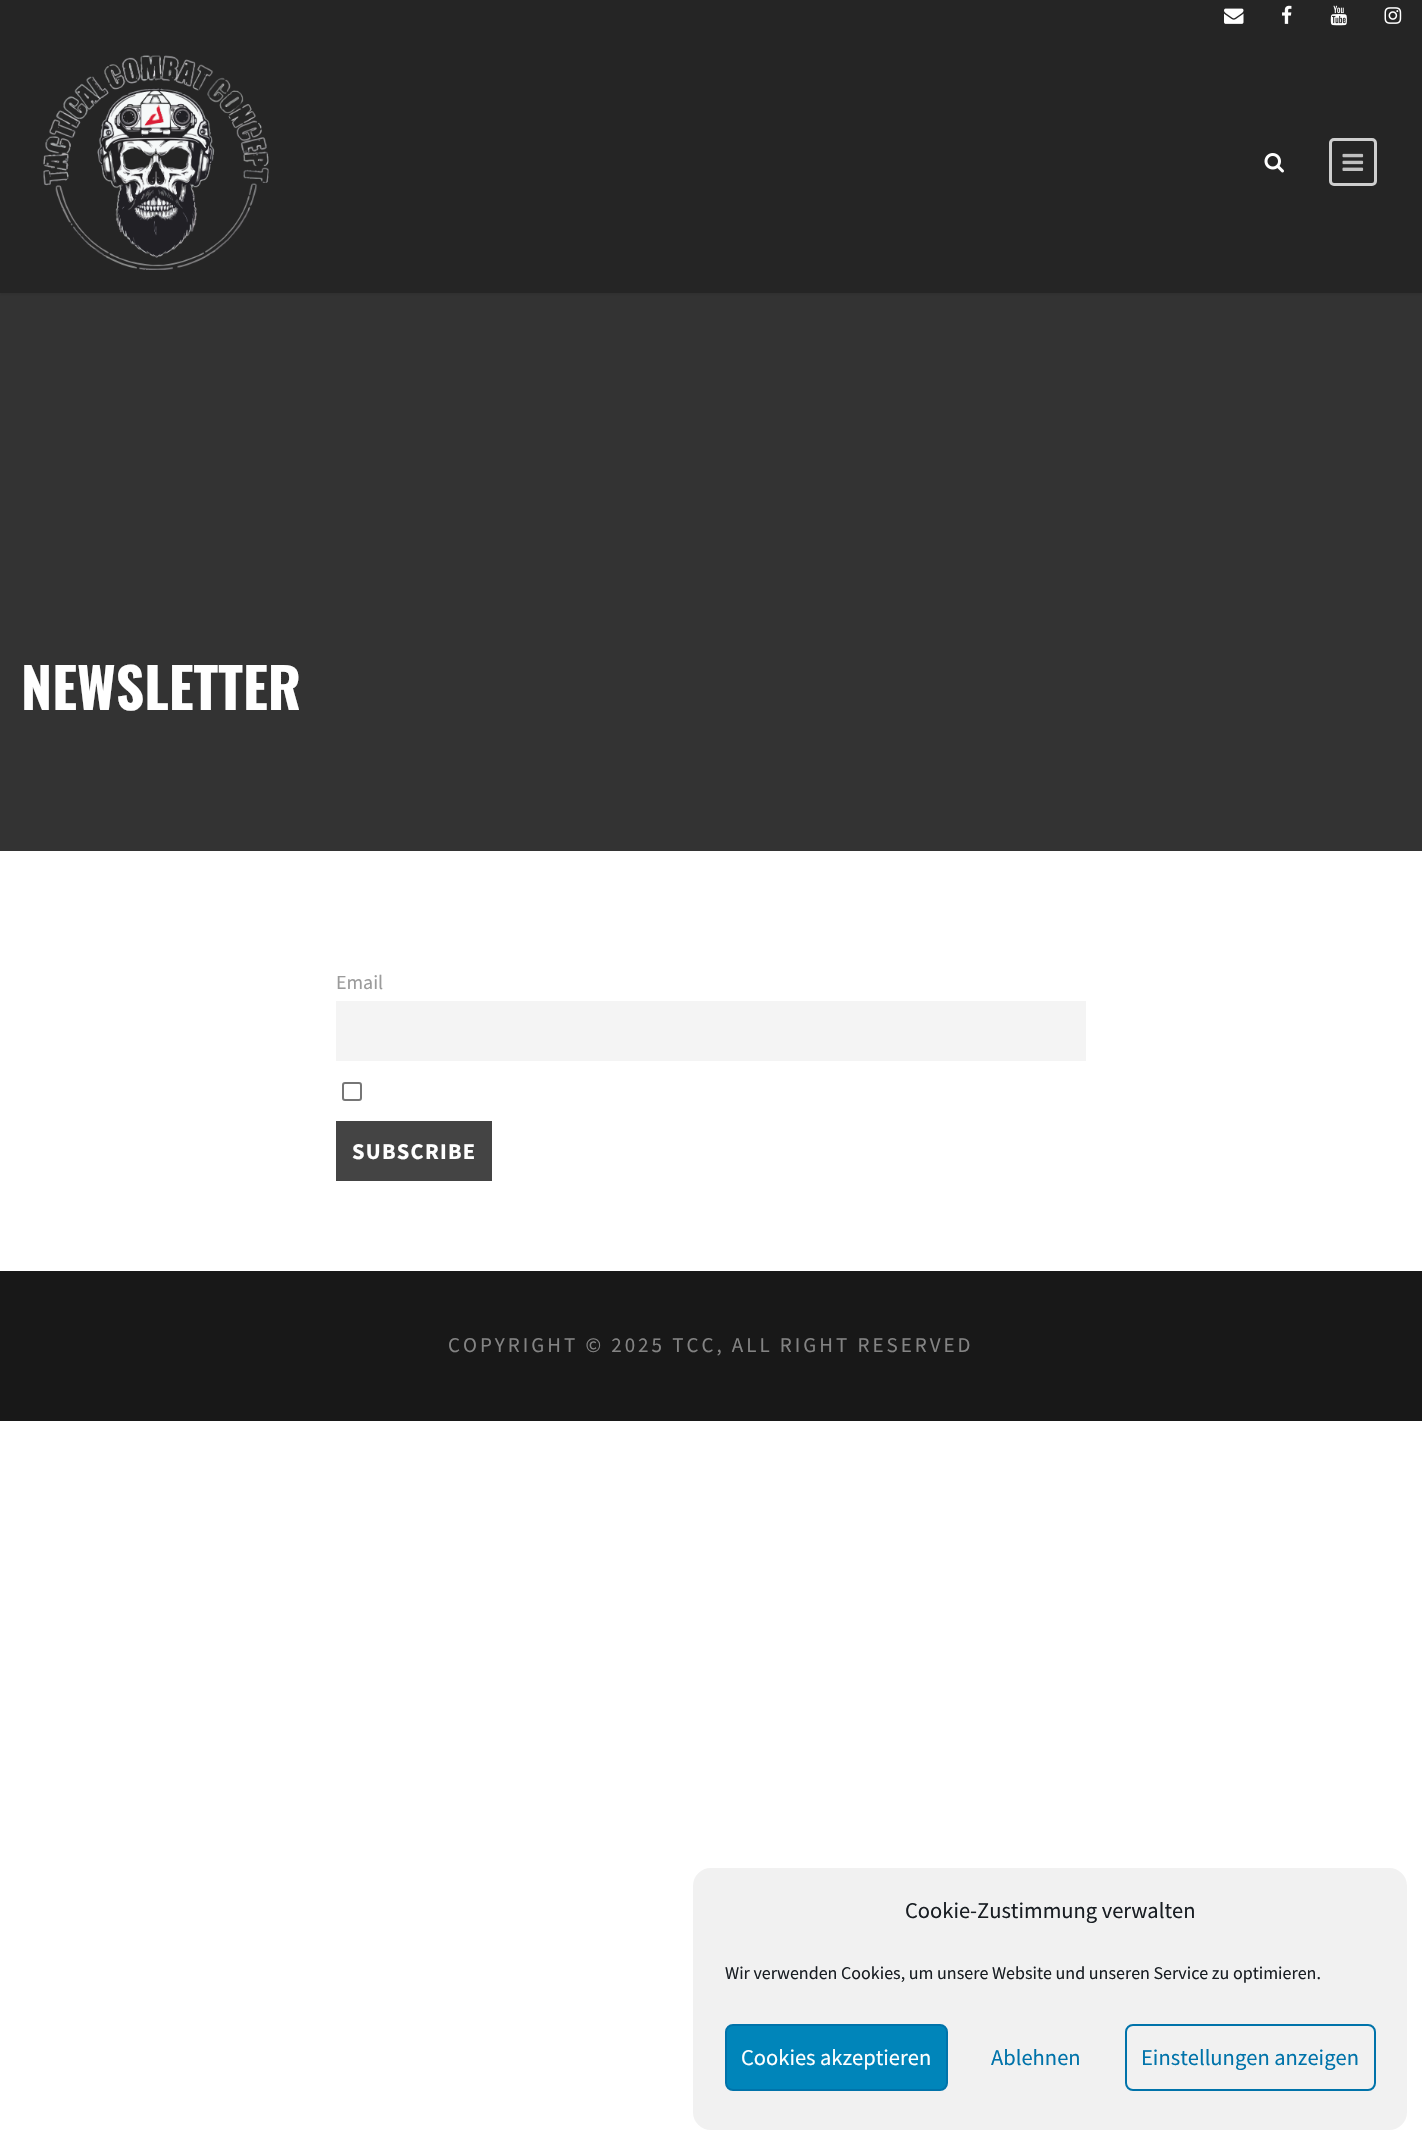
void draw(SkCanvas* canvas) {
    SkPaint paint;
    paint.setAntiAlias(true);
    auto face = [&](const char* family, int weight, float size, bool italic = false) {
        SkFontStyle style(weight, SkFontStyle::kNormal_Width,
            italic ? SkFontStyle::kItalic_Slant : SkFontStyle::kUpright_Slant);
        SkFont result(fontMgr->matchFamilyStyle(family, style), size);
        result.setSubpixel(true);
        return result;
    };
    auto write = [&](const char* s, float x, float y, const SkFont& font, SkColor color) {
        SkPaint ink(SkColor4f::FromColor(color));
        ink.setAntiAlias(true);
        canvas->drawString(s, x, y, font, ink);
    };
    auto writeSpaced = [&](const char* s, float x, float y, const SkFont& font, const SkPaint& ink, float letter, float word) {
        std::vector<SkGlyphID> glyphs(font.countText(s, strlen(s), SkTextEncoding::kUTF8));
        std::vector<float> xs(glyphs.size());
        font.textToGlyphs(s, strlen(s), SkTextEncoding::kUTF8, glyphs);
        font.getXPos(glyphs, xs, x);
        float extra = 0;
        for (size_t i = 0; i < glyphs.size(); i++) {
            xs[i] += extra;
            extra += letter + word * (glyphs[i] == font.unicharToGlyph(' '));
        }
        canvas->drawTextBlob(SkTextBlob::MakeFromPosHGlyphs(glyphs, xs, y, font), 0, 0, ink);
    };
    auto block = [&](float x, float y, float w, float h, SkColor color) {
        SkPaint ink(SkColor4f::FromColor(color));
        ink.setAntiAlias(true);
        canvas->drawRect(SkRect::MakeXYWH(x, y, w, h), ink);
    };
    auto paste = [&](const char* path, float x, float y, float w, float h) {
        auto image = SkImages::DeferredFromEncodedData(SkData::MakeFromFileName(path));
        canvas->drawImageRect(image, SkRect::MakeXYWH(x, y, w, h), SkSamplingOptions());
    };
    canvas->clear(SK_ColorWHITE);
    block(0, 0, 1422, 33, SkColorSetRGB(37, 37, 37));
    paste("pic1.png", 1224, 8, 20, 16);
    paste("pic2.png", 1282, 5, 10, 19);
    paste("pic3.png", 1330, 5, 17, 21);
    paste("pic4.png", 1384, 7, 18, 17);
    block(0, 293, 1422, 558, SkColorSetRGB(51, 51, 51));
    paint.setColor(SkColorSetARGB(26, 0, 0, 0));
    paint.setMaskFilter(SkMaskFilter::MakeBlur(kNormal_SkBlurStyle, 1.5f));
    canvas->drawRect(SkRect::MakeXYWH(0, 35, 1422, 259), paint);
    paint.setMaskFilter(nullptr);
    block(0, 33, 1422, 260, SkColorSetRGB(37, 37, 37));
    paste("pic5.png", 43, 55, 226, 215);
    paste("pic6.png", 1264, 153, 20, 20);
    paint.setStyle(SkPaint::kStroke_Style);
    paint.setStrokeWidth(3);
    paint.setColor(SkColorSetRGB(206, 206, 206));
    canvas->drawRoundRect(SkRect::MakeXYWH(1330.5f, 139.5f, 45, 45), 3.5f, 3.5f, paint);
    paste("pic7.png", 1342, 153, 22, 18);
    auto kFont1 = face("Oswald", 700, 55.5f);
    write("NEWSLETTER", 21, 710, kFont1, SK_ColorWHITE);
    auto kFont2 = face("Source Sans Pro", 400, 20);
    write("Email", 336, 989, kFont2, SkColorSetRGB(155, 155, 155));
    block(336, 1001, 750, 60, SkColorSetRGB(244, 244, 244));
    paint.setStrokeWidth(2);
    paint.setColor(SkColorSetRGB(118, 118, 118));
    canvas->drawRoundRect(SkRect::MakeXYWH(343, 1083, 18, 17), 2, 2, paint);
    block(336, 1121, 156, 60, SkColorSetRGB(68, 68, 68));
    auto kFont3 = face("Source Sans Pro", 700, 22.5f);
    paint.setStyle(SkPaint::kFill_Style);
    paint.setColor(SK_ColorWHITE);
    writeSpaced("SUBSCRIBE", 352, 1159, kFont3, paint, 1.25f, 0);
    block(0, 1271, 1422, 150, SkColorSetRGB(24, 24, 24));
    auto kFont4 = face("Source Sans Pro", 400, 21);
    paint.setColor(SkColorSetRGB(131, 131, 131));
    writeSpaced("COPYRIGHT © 2025 TCC, ALL RIGHT RESERVED", 448, 1352, kFont4, paint, 3, 0);
    paint.setColor(SkColorSetRGB(241, 241, 241));
    canvas->drawRoundRect(SkRect::MakeXYWH(694, 1869, 712, 260), 17, 17, paint);
    paint.setStyle(SkPaint::kStroke_Style);
    canvas->drawRoundRect(SkRect::MakeXYWH(694, 1869, 712, 260), 17, 17, paint);
    auto kFont5 = face("Source Sans Pro", 400, 22.5f);
    write("Cookie-Zustimmung verwalten", 905, 1918, kFont5, SkColorSetRGB(25, 30, 35));
    auto kFont6 = face("Source Sans Pro", 400, 18);
    write("Wir verwenden Cookies, um unsere Website und unseren Service zu optimieren.", 725, 1979, kFont6, SkColorSetRGB(25, 30, 35));
    paint.setStyle(SkPaint::kFill_Style);
    paint.setColor(SkColorSetRGB(0, 133, 186));
    canvas->drawRoundRect(SkRect::MakeXYWH(726, 2025, 221, 65), 7, 7, paint);
    paint.setStyle(SkPaint::kStroke_Style);
    paint.setColor(SkColorSetRGB(0, 115, 170));
    canvas->drawRoundRect(SkRect::MakeXYWH(726, 2025, 221, 65), 7, 7, paint);
    write("Cookies akzeptieren", 741, 2065, kFont5, SK_ColorWHITE);
    write("Ablehnen", 991, 2065, kFont5, SkColorSetRGB(0, 115, 170));
    canvas->drawRoundRect(SkRect::MakeXYWH(1126, 2025, 249, 65), 7, 7, paint);
    write("Einstellungen anzeigen", 1141, 2065, kFont5, SkColorSetRGB(0, 115, 170));
}
